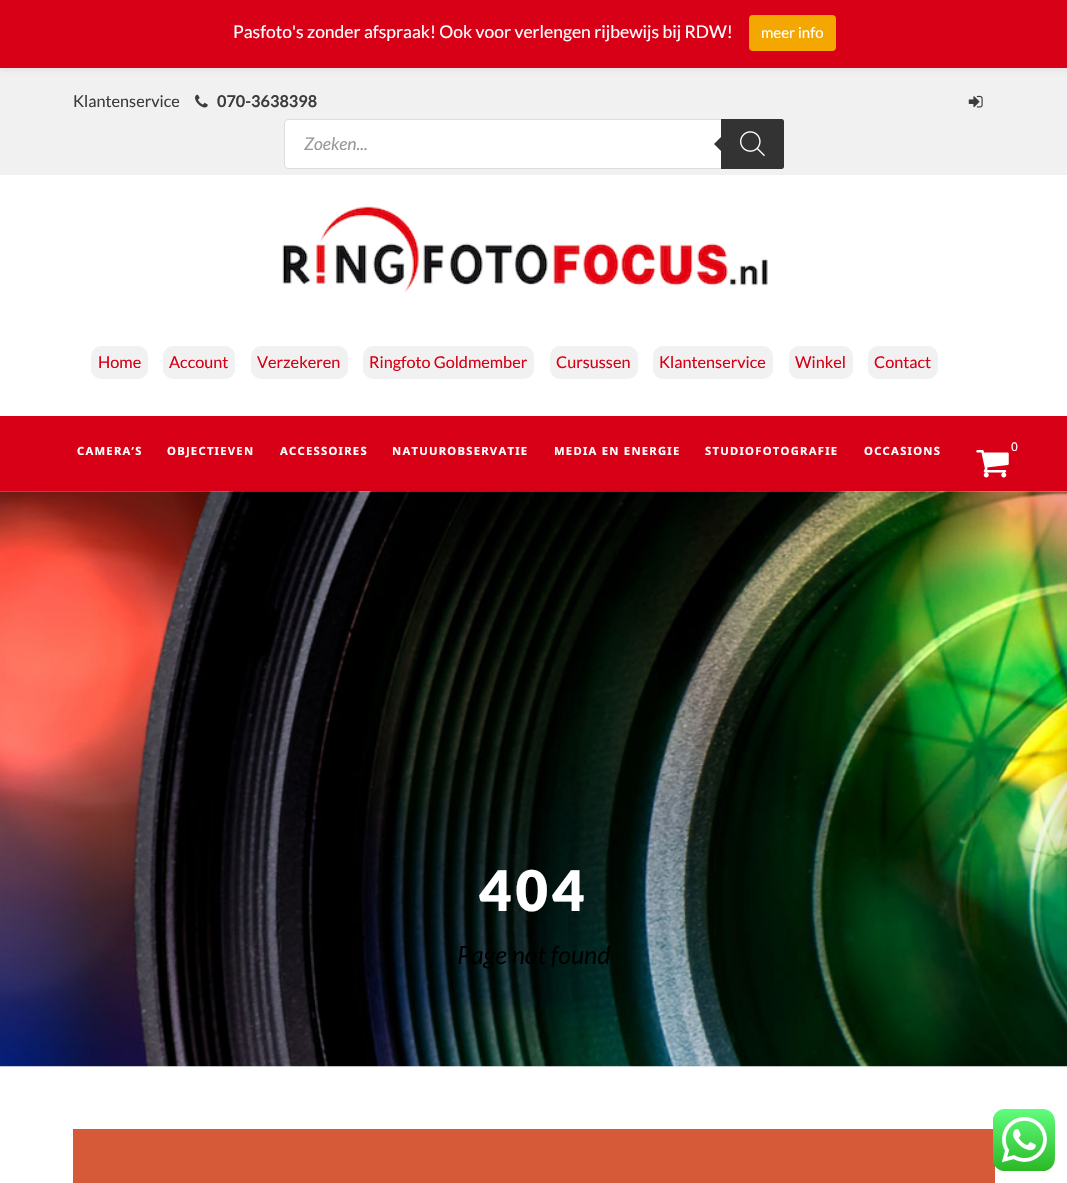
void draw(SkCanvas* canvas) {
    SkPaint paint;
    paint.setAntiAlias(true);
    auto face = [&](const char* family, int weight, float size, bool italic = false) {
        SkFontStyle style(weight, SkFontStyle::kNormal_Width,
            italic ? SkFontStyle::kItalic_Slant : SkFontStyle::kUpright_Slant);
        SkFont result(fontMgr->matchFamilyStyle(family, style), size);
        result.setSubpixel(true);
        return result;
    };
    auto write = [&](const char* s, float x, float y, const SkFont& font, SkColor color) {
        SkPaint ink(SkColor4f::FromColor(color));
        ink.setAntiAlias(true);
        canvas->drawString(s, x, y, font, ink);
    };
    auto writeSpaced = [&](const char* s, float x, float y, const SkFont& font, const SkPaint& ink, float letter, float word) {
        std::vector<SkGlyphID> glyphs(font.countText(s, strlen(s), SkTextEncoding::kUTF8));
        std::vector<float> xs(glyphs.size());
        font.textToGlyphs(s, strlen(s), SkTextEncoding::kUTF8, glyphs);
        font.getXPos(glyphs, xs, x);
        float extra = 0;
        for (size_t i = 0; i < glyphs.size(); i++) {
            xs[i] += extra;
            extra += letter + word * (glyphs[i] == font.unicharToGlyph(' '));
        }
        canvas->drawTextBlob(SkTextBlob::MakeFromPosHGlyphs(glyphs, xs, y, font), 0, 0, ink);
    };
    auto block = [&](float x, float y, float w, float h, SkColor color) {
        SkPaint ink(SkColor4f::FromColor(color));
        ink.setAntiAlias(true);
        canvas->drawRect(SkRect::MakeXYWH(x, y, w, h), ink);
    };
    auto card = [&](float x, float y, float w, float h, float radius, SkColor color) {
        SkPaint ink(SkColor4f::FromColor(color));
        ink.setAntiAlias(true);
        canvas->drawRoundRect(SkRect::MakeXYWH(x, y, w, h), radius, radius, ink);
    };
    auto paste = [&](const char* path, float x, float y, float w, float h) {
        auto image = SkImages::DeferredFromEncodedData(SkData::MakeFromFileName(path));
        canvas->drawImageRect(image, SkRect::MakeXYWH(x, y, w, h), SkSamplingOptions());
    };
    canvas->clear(SK_ColorWHITE);
    block(0, 68, 1067, 107, SkColorSetRGB(241, 241, 241));
    paint.setColor(SkColorSetARGB(13, 0, 0, 0));
    paint.setMaskFilter(SkMaskFilter::MakeBlur(kNormal_SkBlurStyle, 2.5f));
    canvas->drawRect(SkRect::MakeXYWH(0, 4, 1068, 67), paint);
    paint.setMaskFilter(nullptr);
    block(0, 0, 1067, 68, SkColorSetRGB(215, 0, 22));
    auto kFont1 = face("Lato", 400, 17.5f);
    write("Pasfoto's zonder afspraak! Ook voor verlengen rijbewijs bij RDW!", 233, 38, kFont1, SK_ColorWHITE);
    card(749, 15, 87, 36, 4, SkColorSetRGB(244, 167, 0));
    auto kFont2 = face("Lato", 400, 15);
    write("meer info", 761, 38, kFont2, SK_ColorWHITE);
    auto kFont3 = face("Lato", 400, 16.25f);
    write("Klantenservice", 73, 107, kFont3, SkColorSetRGB(62, 59, 59));
    paste("pic1.png", 195, 94, 13, 14);
    auto kFont4 = face("Lato", 700, 16.25f);
    write("070-3638398", 217, 107, kFont4, SkColorSetRGB(62, 59, 59));
    paste("pic2.png", 968, 95, 15, 13);
    paint.setColor(SK_ColorWHITE);
    canvas->drawRoundRect(SkRect::MakeXYWH(284.5f, 119.5f, 499, 49), 3.5f, 3.5f, paint);
    paint.setStyle(SkPaint::kStroke_Style);
    paint.setStrokeWidth(1);
    paint.setColor(SkColorSetRGB(221, 221, 221));
    canvas->drawRoundRect(SkRect::MakeXYWH(284.5f, 119.5f, 499, 49), 3.5f, 3.5f, paint);
    auto kFont5 = face("Lato", 400, 17.5f, true);
    write("Zoeken...", 304, 150, kFont5, SkColorSetRGB(153, 153, 153));
    paint.setStyle(SkPaint::kFill_Style);
    paint.setColor(SkColorSetRGB(51, 51, 51));
    canvas->drawPath(SkPathBuilder().moveTo(721, 119).lineTo(781.5f, 119).cubicTo(783, 119, 784, 120, 784, 121.5f).lineTo(784, 166.5f).cubicTo(784, 168, 783, 169, 781.5f, 169).lineTo(721, 169).close().detach(), paint);
    canvas->drawPath(SkPathBuilder().moveTo(724, 134).lineTo(724, 154).lineTo(714, 144).close().detach(), paint);
    paste("pic3.png", 740, 131, 25, 26);
    paste("pic4.png", 282, 206, 486, 87);
    card(91, 346, 57, 33, 10, SkColorSetRGB(241, 241, 241));
    write("Home", 98, 368, kFont3, SkColorSetRGB(215, 0, 22));
    card(163, 346, 72, 33, 10, SkColorSetRGB(241, 241, 241));
    write("Account", 169, 368, kFont3, SkColorSetRGB(215, 0, 22));
    card(251, 346, 97, 33, 10, SkColorSetRGB(241, 241, 241));
    write("Verzekeren", 257, 368, kFont3, SkColorSetRGB(215, 0, 22));
    card(363, 346, 171, 33, 10, SkColorSetRGB(241, 241, 241));
    write("Ringfoto Goldmember", 369, 368, kFont3, SkColorSetRGB(215, 0, 22));
    card(550, 346, 88, 33, 10, SkColorSetRGB(241, 241, 241));
    write("Cursussen", 556, 368, kFont3, SkColorSetRGB(215, 0, 22));
    card(653, 346, 120, 33, 10, SkColorSetRGB(241, 241, 241));
    write("Klantenservice", 659, 368, kFont3, SkColorSetRGB(215, 0, 22));
    card(789, 346, 64, 33, 10, SkColorSetRGB(241, 241, 241));
    write("Winkel", 795, 368, kFont3, SkColorSetRGB(215, 0, 22));
    card(868, 346, 70, 33, 10, SkColorSetRGB(241, 241, 241));
    write("Contact", 874, 368, kFont3, SkColorSetRGB(215, 0, 22));
    block(0, 416, 1067, 75, SkColorSetRGB(215, 0, 22));
    auto kFont6 = face("Noto Sans", 700, 11.25f);
    paint.setColor(SK_ColorWHITE);
    writeSpaced("CAMERA’S", 77, 455, kFont6, paint, 1.25f, 0);
    writeSpaced("OBJECTIEVEN", 167, 455, kFont6, paint, 1.25f, 0);
    writeSpaced("ACCESSOIRES", 280, 455, kFont6, paint, 1.25f, 0);
    writeSpaced("NATUUROBSERVATIE", 392, 455, kFont6, paint, 1.25f, 0);
    writeSpaced("MEDIA EN ENERGIE", 554, 455, kFont6, paint, 1.25f, 0);
    writeSpaced("STUDIOFOTOGRAFIE", 705, 455, kFont6, paint, 1.25f, 0);
    writeSpaced("OCCASIONS", 864, 455, kFont6, paint, 1.25f, 0);
    auto kFont7 = face("Noto Sans", 400, 12);
    write("0", 1011, 451, kFont7, SK_ColorWHITE);
    paste("pic5.png", 976, 450, 33, 28);
    paste("pic6.png", 0, 491, 1067, 576);
    auto kFont8 = face("Lato", 900, 56);
    writeSpaced("404", 479, 911, kFont8, paint, 4, 0);
    auto kFont9 = face("Lato", 400, 25, true);
    write("Page not found", 457, 964, kFont9, SK_ColorBLACK);
    block(73, 1129, 922, 54, SkColorSetRGB(214, 89, 56));
    paste("pic7.png", 993, 1109, 62, 62);
}
